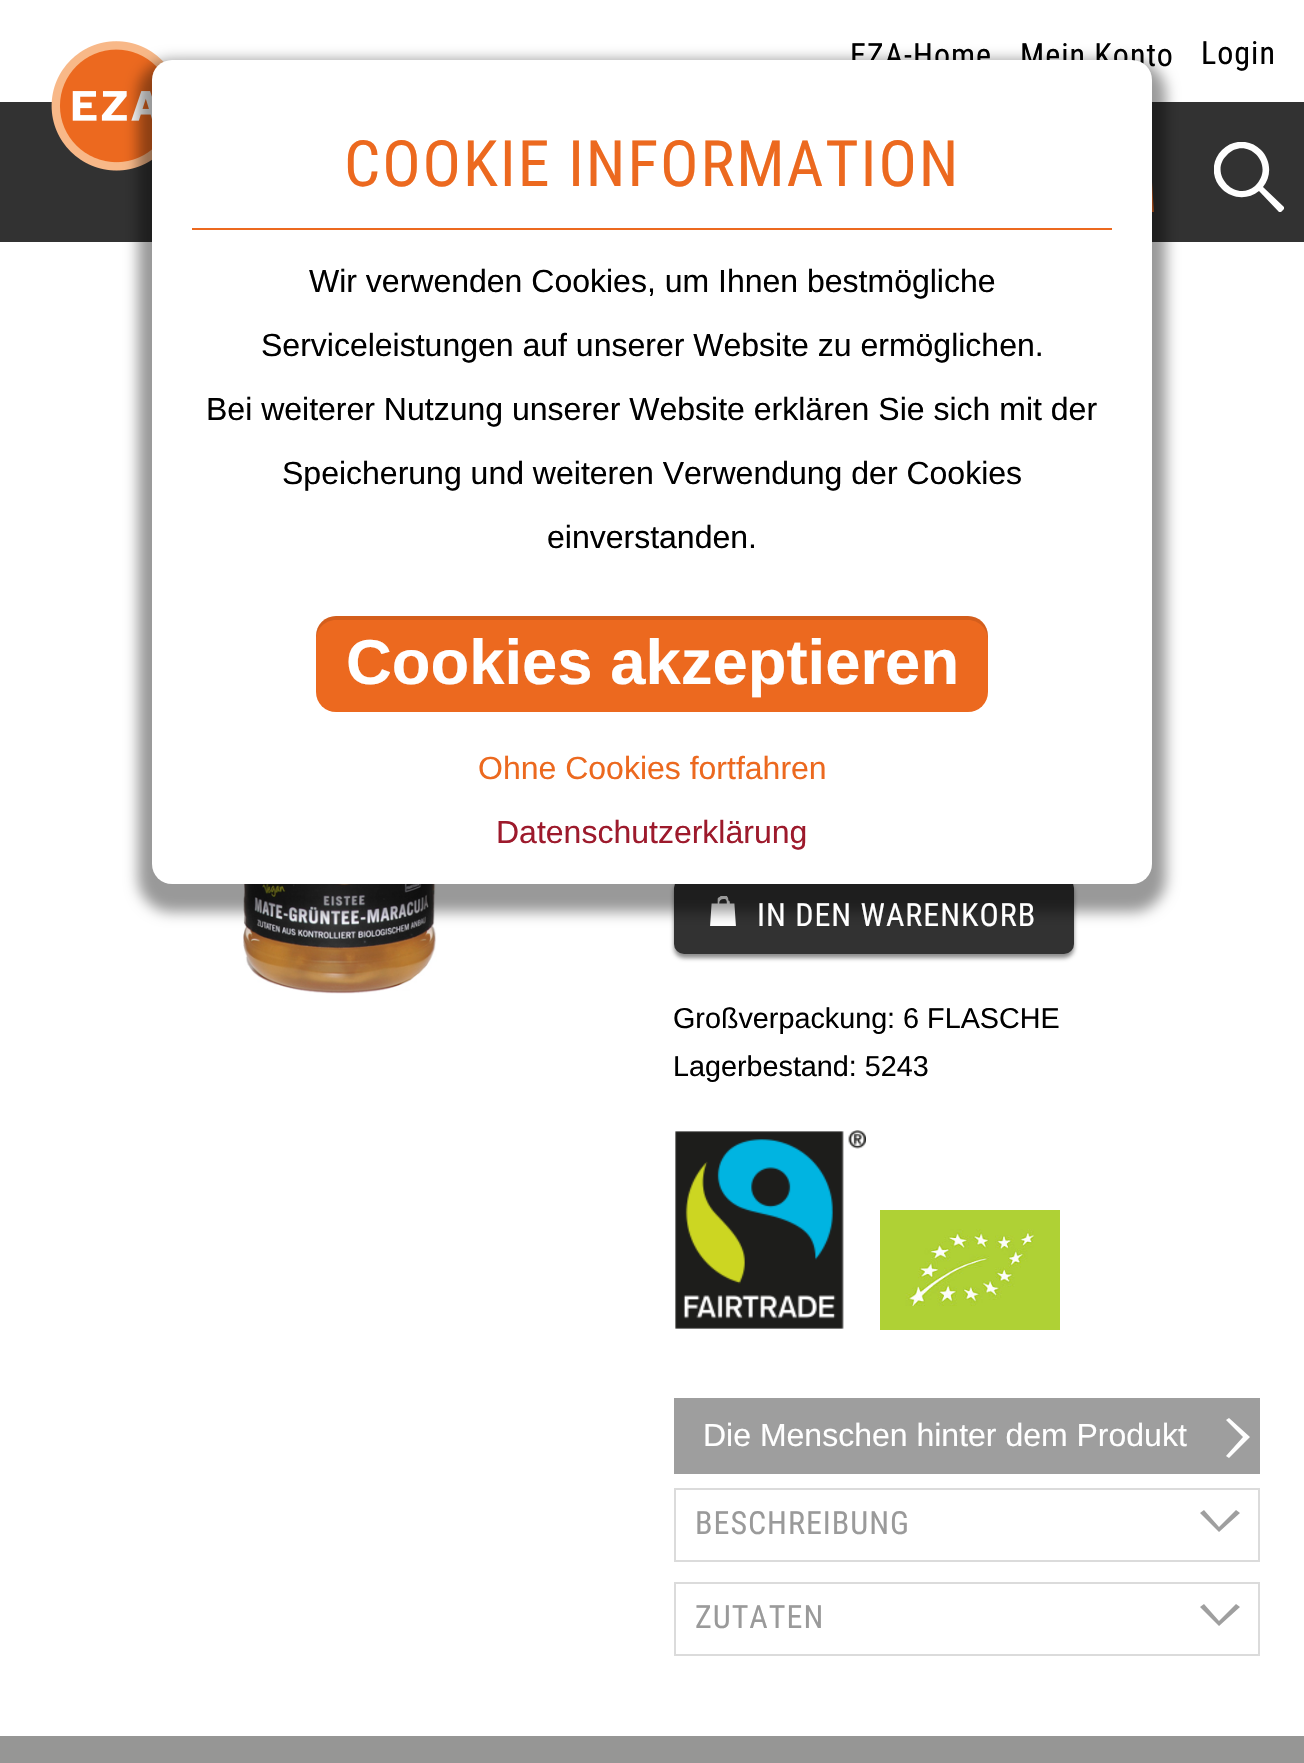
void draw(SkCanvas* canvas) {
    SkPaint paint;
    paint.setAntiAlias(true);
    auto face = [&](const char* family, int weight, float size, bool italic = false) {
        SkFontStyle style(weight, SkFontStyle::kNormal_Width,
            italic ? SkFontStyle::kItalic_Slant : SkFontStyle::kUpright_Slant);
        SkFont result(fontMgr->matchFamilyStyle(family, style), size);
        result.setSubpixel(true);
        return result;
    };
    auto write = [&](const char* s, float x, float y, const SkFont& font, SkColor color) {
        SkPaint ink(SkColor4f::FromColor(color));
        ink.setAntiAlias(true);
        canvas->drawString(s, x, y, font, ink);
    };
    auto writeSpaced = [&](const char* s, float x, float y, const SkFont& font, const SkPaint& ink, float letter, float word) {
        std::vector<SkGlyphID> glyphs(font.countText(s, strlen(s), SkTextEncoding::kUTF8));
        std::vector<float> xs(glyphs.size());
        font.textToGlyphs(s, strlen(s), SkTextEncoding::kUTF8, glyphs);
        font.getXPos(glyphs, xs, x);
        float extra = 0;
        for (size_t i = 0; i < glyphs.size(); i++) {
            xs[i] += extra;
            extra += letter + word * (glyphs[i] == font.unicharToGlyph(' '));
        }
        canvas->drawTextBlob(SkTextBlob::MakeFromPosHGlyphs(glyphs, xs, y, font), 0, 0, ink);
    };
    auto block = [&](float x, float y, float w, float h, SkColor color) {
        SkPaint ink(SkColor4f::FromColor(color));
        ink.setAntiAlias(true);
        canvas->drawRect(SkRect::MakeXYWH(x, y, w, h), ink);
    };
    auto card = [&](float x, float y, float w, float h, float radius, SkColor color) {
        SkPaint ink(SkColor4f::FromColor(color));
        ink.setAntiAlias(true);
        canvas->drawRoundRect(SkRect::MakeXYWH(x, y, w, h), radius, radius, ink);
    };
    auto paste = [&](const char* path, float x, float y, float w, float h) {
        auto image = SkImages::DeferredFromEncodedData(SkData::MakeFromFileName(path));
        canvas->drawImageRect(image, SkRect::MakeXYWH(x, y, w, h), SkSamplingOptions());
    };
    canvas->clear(SkColorSetRGB(150, 150, 149));
    block(0, 0, 1304, 102, SK_ColorWHITE);
    auto kFont1 = face("Roboto Condensed", 400, 32);
    paint.setColor(SK_ColorBLACK);
    writeSpaced("EZA-Home", 850, 66, kFont1, paint, 1, 0);
    writeSpaced("Mein Konto", 1020, 66, kFont1, paint, 1, 0);
    writeSpaced("Login", 1201, 64, kFont1, paint, 1, 0);
    block(0, 102, 1304, 140, SkColorSetRGB(50, 50, 50));
    paste("pic1.png", 51, 41, 113, 130);
    canvas->save();
    canvas->clipRect(SkRect::MakeXYWH(1084, 132, 70, 80));
    paint.setColor(SkColorSetRGB(236, 105, 31));
    canvas->drawPath(SkPathBuilder().moveTo(1087, 150).lineTo(1103, 150).cubicTo(1103, 138, 1109, 132, 1121, 132).lineTo(1126, 133).cubicTo(1132, 136, 1136, 144, 1135, 150).lineTo(1150, 150).lineTo(1154, 214).lineTo(1084, 214).close().moveTo(1109, 150).lineTo(1129, 150).cubicTo(1129, 147, 1129, 144, 1127, 141).cubicTo(1123, 137, 1114, 138, 1111, 142).cubicTo(1109, 144, 1109, 148, 1109, 150).close().detach(), paint);
    canvas->restore();
    canvas->save();
    canvas->clipRect(SkRect::MakeXYWH(1214, 142, 70, 70));
    paint.setColor(SkColorSetRGB(254, 254, 254));
    canvas->drawPath(SkPathBuilder(SkPathFillType::kEvenOdd).moveTo(1261, 150).cubicTo(1250, 139, 1233, 139, 1222, 150).cubicTo(1211, 161, 1211, 178, 1222, 189).cubicTo(1232, 199, 1248, 200, 1259, 191).lineTo(1279, 212).cubicTo(1280, 212, 1281, 212, 1281, 212).lineTo(1284, 209).cubicTo(1284, 209, 1284, 208, 1284, 207).lineTo(1263, 187).cubicTo(1272, 176, 1271, 160, 1261, 150).close().moveTo(1255, 186).cubicTo(1277, 164, 1246, 135, 1227, 155).cubicTo(1208, 173, 1235, 203, 1255, 186).close().detach(), paint);
    canvas->restore();
    block(0, 242, 1304, 1494, SK_ColorWHITE);
    paste("pic2.png", 243, 884, 194, 110);
    paint.setColor(SkColorSetARGB(115, 0, 0, 0));
    paint.setMaskFilter(SkMaskFilter::MakeBlur(kNormal_SkBlurStyle, 2));
    canvas->drawRoundRect(SkRect::MakeXYWH(674, 882, 400, 76), 10, 10, paint);
    paint.setMaskFilter(nullptr);
    card(674, 878, 400, 76, 10, SkColorSetRGB(50, 50, 50));
    paste("pic3.png", 710, 896, 26, 30);
    paint.setColor(SkColorSetARGB(102, 0, 0, 0));
    paint.setMaskFilter(SkMaskFilter::MakeBlur(kNormal_SkBlurStyle, 7));
    canvas->drawRoundRect(SkRect::MakeXYWH(138, 60, 1028, 852), 34, 34, paint);
    paint.setMaskFilter(nullptr);
    card(152, 60, 1000, 824, 20, SK_ColorWHITE);
    block(192, 228, 920, 2, SkColorSetRGB(236, 105, 31));
    auto kFont2 = face("Roboto Condensed", 400, 64);
    paint.setColor(SkColorSetRGB(236, 105, 31));
    writeSpaced("COOKIE INFORMATION", 344, 186, kFont2, paint, 1.9f, 0);
    auto kFont3 = face("Liberation Sans", 400, 32);
    write("Wir verwenden Cookies, um Ihnen bestmögliche", 309, 292, kFont3, SK_ColorBLACK);
    write("Serviceleistungen auf unserer Website zu ermöglichen.", 261, 356, kFont3, SK_ColorBLACK);
    write("Bei weiterer Nutzung unserer Website erklären Sie sich mit der", 206, 420, kFont3, SK_ColorBLACK);
    write("Speicherung und weiteren Verwendung der Cookies", 282, 484, kFont3, SK_ColorBLACK);
    write("einverstanden.", 547, 548, kFont3, SK_ColorBLACK);
    card(316, 616, 672, 96, 20, SkColorSetRGB(236, 105, 31));
    paint.setColor(SkColorSetARGB(26, 0, 0, 0));
    canvas->drawPath(SkPathBuilder().moveTo(336, 620).lineTo(968, 620).cubicTo(979, 620, 988, 629, 988, 640).lineTo(988, 636).cubicTo(988, 625, 979, 616, 968, 616).lineTo(336, 616).cubicTo(325, 616, 316, 625, 316, 636).lineTo(316, 640).cubicTo(316, 629, 325, 620, 336, 620).close().detach(), paint);
    auto kFont4 = face("Liberation Sans", 700, 63.4f);
    write("Cookies akzeptieren", 346, 684, kFont4, SK_ColorWHITE);
    write("Ohne Cookies fortfahren", 478, 779, kFont3, SkColorSetRGB(236, 105, 31));
    write("Datenschutzerklärung", 496, 843, kFont3, SkColorSetRGB(157, 26, 44));
    paint.setColor(SK_ColorWHITE);
    writeSpaced("IN DEN WARENKORB", 757, 926, kFont1, paint, 1, 0);
    auto kFont5 = face("Liberation Sans", 400, 28.75f);
    write("Großverpackung: 6 FLASCHE", 673, 1028, kFont5, SK_ColorBLACK);
    write("Lagerbestand: 5243", 673, 1076, kFont5, SK_ColorBLACK);
    paste("pic4.png", 675, 1130, 191, 199);
    paste("pic5.png", 880, 1210, 180, 120);
    block(674, 1398, 586, 76, SkColorSetRGB(158, 158, 158));
    write("Die Menschen hinter dem Produkt", 703, 1446, kFont3, SK_ColorWHITE);
    paint.setColor(SkColorSetRGB(254, 254, 254));
    canvas->drawPath(SkPathBuilder(SkPathFillType::kEvenOdd).moveTo(1226, 1420).lineTo(1229, 1418).lineTo(1250, 1437).lineTo(1229, 1458).lineTo(1226, 1456).lineTo(1243, 1437).close().detach(), paint);
    paint.setStyle(SkPaint::kStroke_Style);
    paint.setStrokeWidth(2);
    paint.setColor(SkColorSetRGB(219, 219, 219));
    canvas->drawRect(SkRect::MakeXYWH(675, 1489, 584, 72), paint);
    paint.setStyle(SkPaint::kFill_Style);
    paint.setColor(SkColorSetRGB(154, 154, 154));
    writeSpaced("BESCHREIBUNG", 695, 1534, kFont1, paint, 1, 0);
    paint.setColor(SkColorSetRGB(159, 159, 159));
    canvas->drawPath(SkPathBuilder(SkPathFillType::kEvenOdd).moveTo(1236, 1510).lineTo(1240, 1513).lineTo(1219, 1532).lineTo(1200, 1513).lineTo(1204, 1510).lineTo(1219, 1527).close().detach(), paint);
    paint.setStyle(SkPaint::kStroke_Style);
    paint.setColor(SkColorSetRGB(219, 219, 219));
    canvas->drawRect(SkRect::MakeXYWH(675, 1583, 584, 72), paint);
    paint.setStyle(SkPaint::kFill_Style);
    paint.setColor(SkColorSetRGB(154, 154, 154));
    writeSpaced("ZUTATEN", 695, 1628, kFont1, paint, 1, 0);
    paint.setColor(SkColorSetRGB(159, 159, 159));
    canvas->drawPath(SkPathBuilder(SkPathFillType::kEvenOdd).moveTo(1236, 1604).lineTo(1240, 1607).lineTo(1219, 1626).lineTo(1200, 1607).lineTo(1204, 1604).lineTo(1219, 1621).close().detach(), paint);
}
